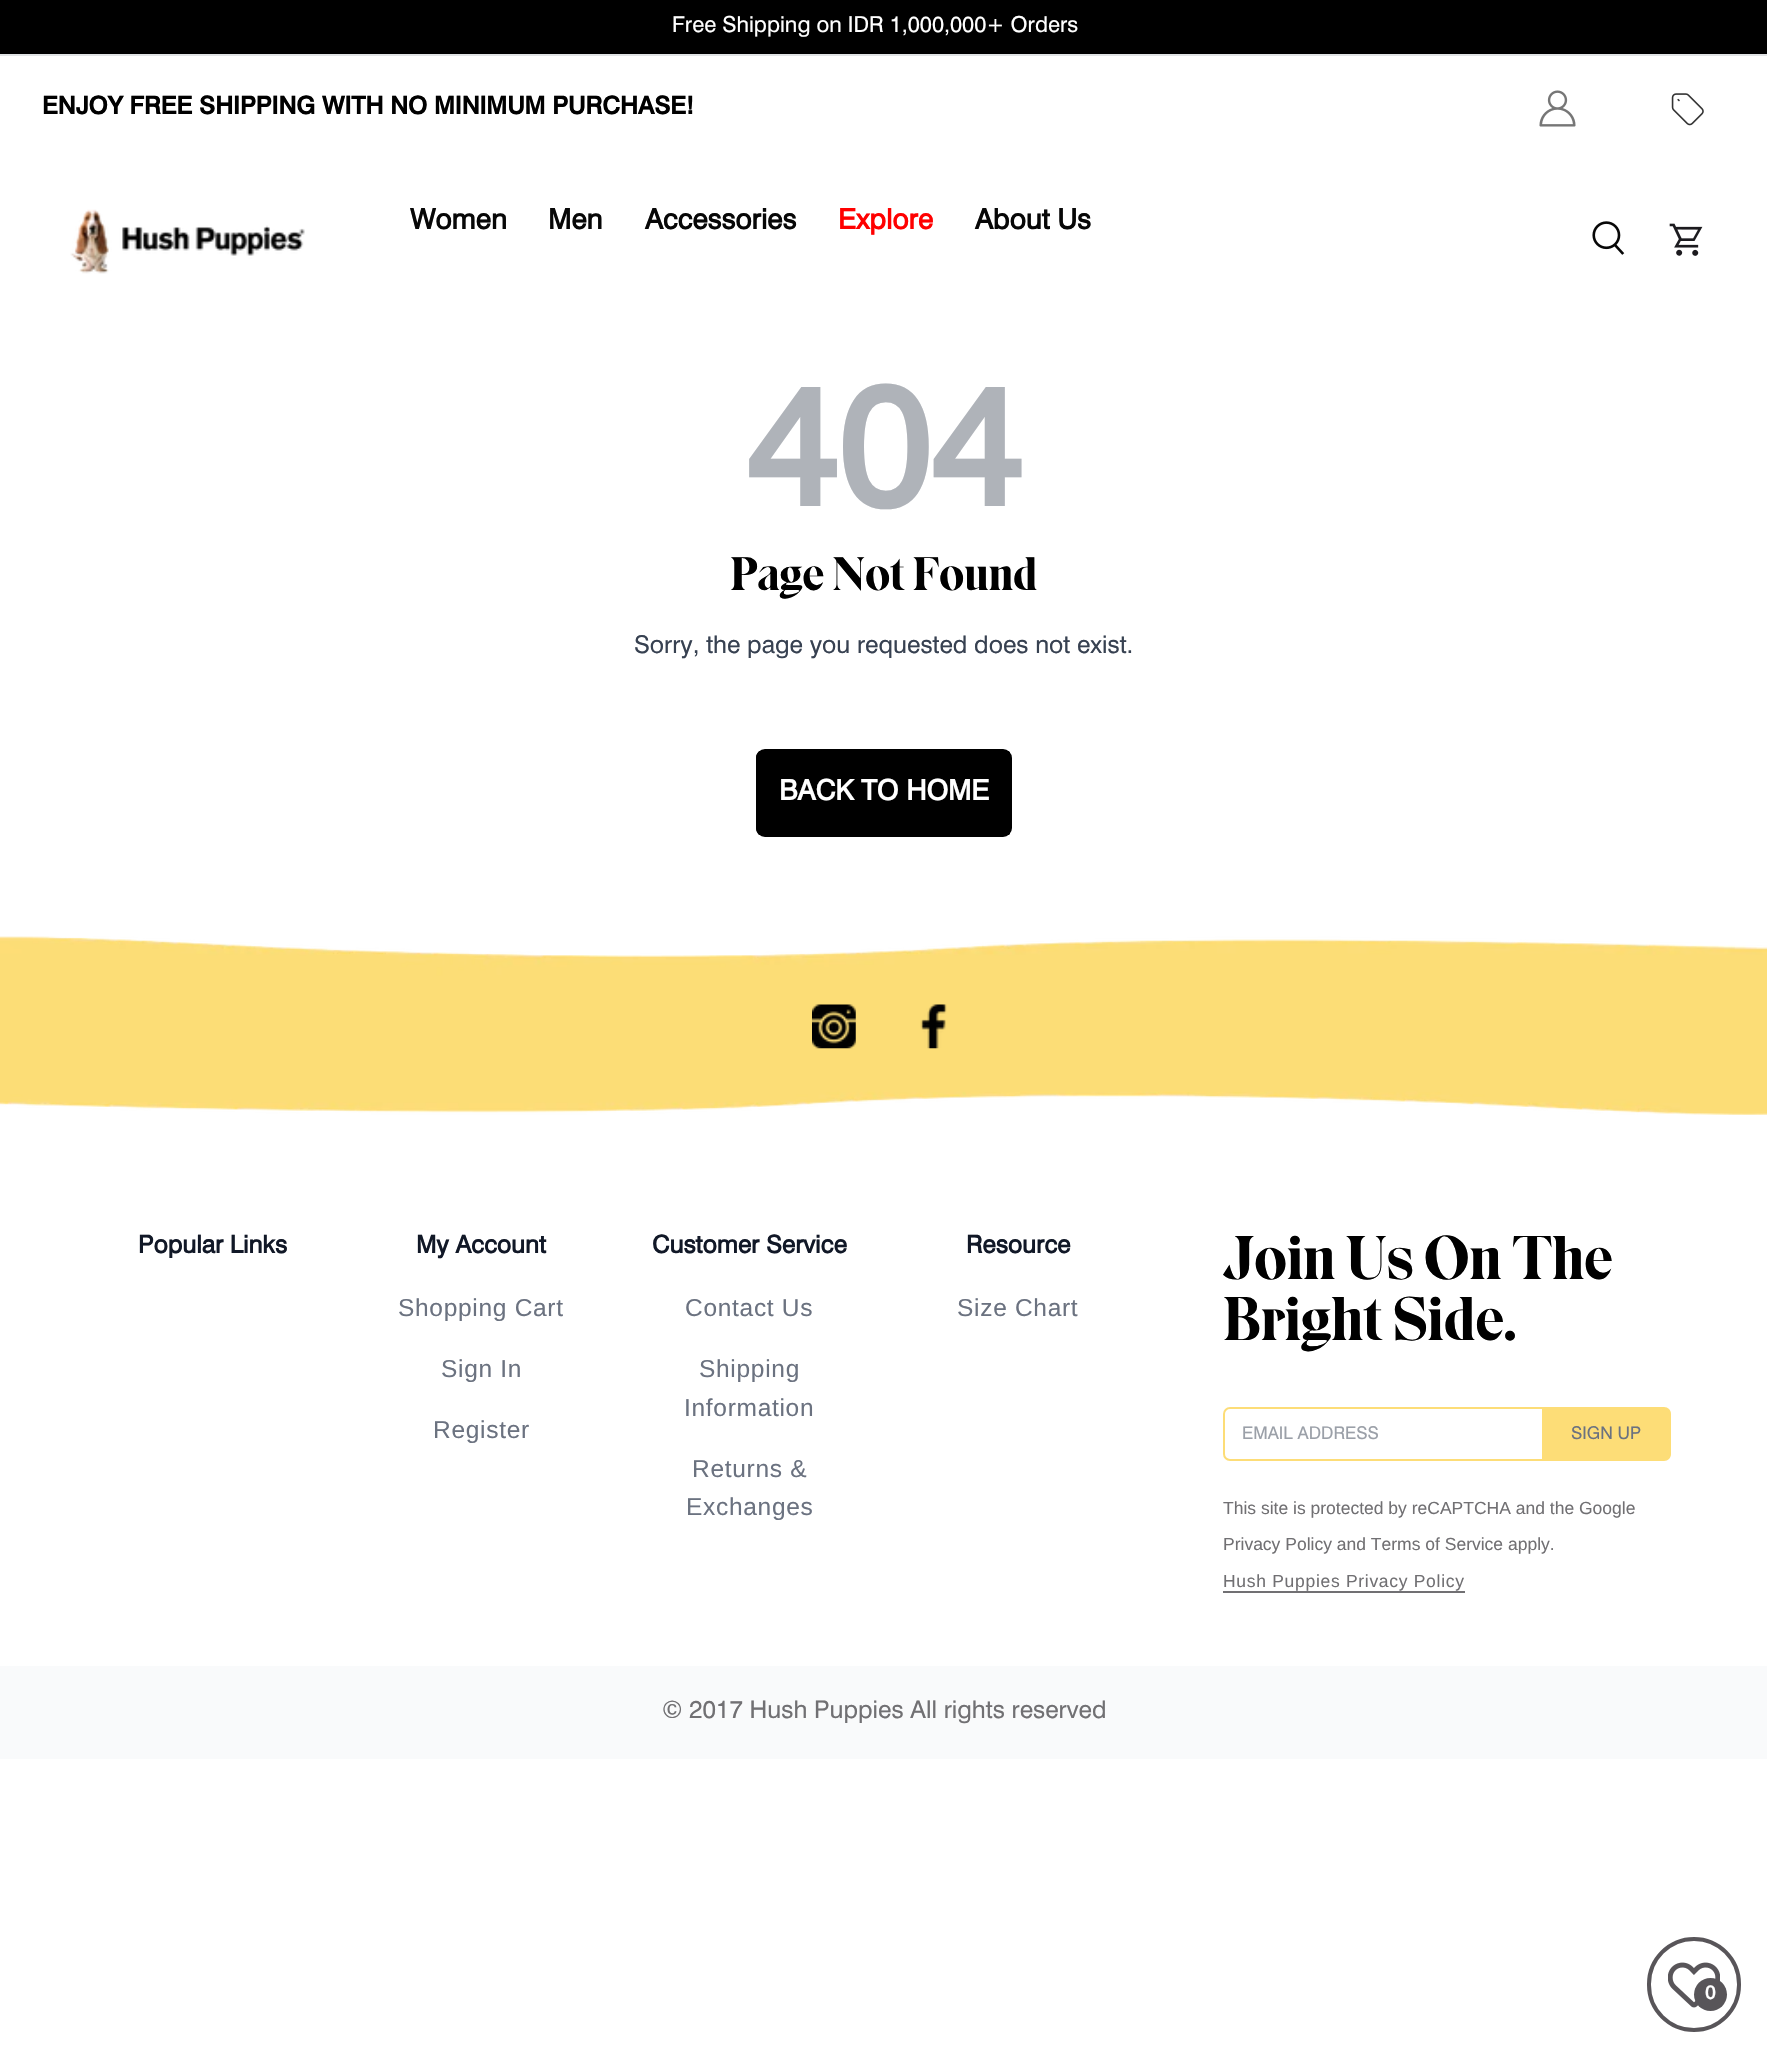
void draw(SkCanvas* canvas) {
    SkPaint paint;
    paint.setAntiAlias(true);
    auto face = [&](const char* family, int weight, float size, bool italic = false) {
        SkFontStyle style(weight, SkFontStyle::kNormal_Width,
            italic ? SkFontStyle::kItalic_Slant : SkFontStyle::kUpright_Slant);
        SkFont result(fontMgr->matchFamilyStyle(family, style), size);
        result.setSubpixel(true);
        return result;
    };
    auto write = [&](const char* s, float x, float y, const SkFont& font, SkColor color) {
        SkPaint ink(SkColor4f::FromColor(color));
        ink.setAntiAlias(true);
        canvas->drawString(s, x, y, font, ink);
    };
    auto writeSpaced = [&](const char* s, float x, float y, const SkFont& font, const SkPaint& ink, float letter, float word) {
        std::vector<SkGlyphID> glyphs(font.countText(s, strlen(s), SkTextEncoding::kUTF8));
        std::vector<float> xs(glyphs.size());
        font.textToGlyphs(s, strlen(s), SkTextEncoding::kUTF8, glyphs);
        font.getXPos(glyphs, xs, x);
        float extra = 0;
        for (size_t i = 0; i < glyphs.size(); i++) {
            xs[i] += extra;
            extra += letter + word * (glyphs[i] == font.unicharToGlyph(' '));
        }
        canvas->drawTextBlob(SkTextBlob::MakeFromPosHGlyphs(glyphs, xs, y, font), 0, 0, ink);
    };
    auto block = [&](float x, float y, float w, float h, SkColor color) {
        SkPaint ink(SkColor4f::FromColor(color));
        ink.setAntiAlias(true);
        canvas->drawRect(SkRect::MakeXYWH(x, y, w, h), ink);
    };
    auto paste = [&](const char* path, float x, float y, float w, float h) {
        auto image = SkImages::DeferredFromEncodedData(SkData::MakeFromFileName(path));
        canvas->drawImageRect(image, SkRect::MakeXYWH(x, y, w, h), SkSamplingOptions());
    };
    canvas->clear(SK_ColorWHITE);
    block(0, 0, 1767, 54, SK_ColorBLACK);
    auto kFont1 = face("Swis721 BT", 400, 22);
    write("Free Shipping on IDR 1,000,000+ Orders", 672, 32, kFont1, SK_ColorWHITE);
    block(0, 54, 1767, 2, SkColorSetRGB(225, 227, 229));
    auto kFont2 = face("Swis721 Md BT", 700, 24.5f);
    write("ENJOY FREE SHIPPING WITH NO MINIMUM PURCHASE!", 42, 114, kFont2, SK_ColorBLACK);
    paste("pic1.png", 1539, 90, 37, 37);
    paste("pic2.png", 1671, 93, 33, 33);
    paste("pic3.png", 70, 209, 235, 65);
    auto kFont3 = face("Swis721 BT", 700, 28);
    write("Women", 410, 229, kFont3, SkColorSetRGB(7, 7, 7));
    write("Men", 548, 229, kFont3, SkColorSetRGB(7, 7, 7));
    write("Accessories", 645, 229, kFont3, SkColorSetRGB(7, 7, 7));
    write("Explore", 838, 229, kFont3, SkColorSetRGB(255, 0, 0));
    write("About Us", 975, 229, kFont3, SkColorSetRGB(7, 7, 7));
    paste("pic4.png", 1592, 221, 33, 34);
    paste("pic5.png", 1669, 223, 34, 33);
    auto kFont4 = face("Swis721 BT", 700, 168);
    write("404", 745, 506, kFont4, SkColorSetRGB(175, 179, 185));
    auto kFont5 = face("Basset", 700, 46.75f);
    write("Page Not Found", 730, 590, kFont5, SK_ColorBLACK);
    auto kFont6 = face("Swis721 BT", 400, 24.5f);
    write("Sorry, the page you requested does not exist.", 634, 653, kFont6, SkColorSetRGB(55, 65, 81));
    canvas->save();
    canvas->clipPath(SkPathBuilder().moveTo(765, 749).lineTo(1003, 749).cubicTo(1008, 749, 1012, 753, 1012, 758).lineTo(1012, 828).cubicTo(1012, 833, 1008, 837, 1003, 837).lineTo(765, 837).cubicTo(760, 837, 756, 833, 756, 828).lineTo(756, 758).cubicTo(756, 753, 760, 749, 765, 749).close().detach(), true);
    {
        const SkColor colors[] = {SkColorSetRGB(46, 46, 46), SK_ColorBLACK, SK_ColorBLACK};
        const float stops[] = {0.6f, 0.6f, 1};
        const SkPoint ends[] = {{266, 702}, {997, 884}};
        paint.setShader(SkGradientShader::MakeLinear(ends, colors, stops, 3, SkTileMode::kClamp));
        paint.setAlpha(255);
    }
    canvas->drawRect(SkRect::MakeXYWH(756, 751, 254, 84), paint);
    canvas->restore();
    paint.setStyle(SkPaint::kStroke_Style);
    paint.setStrokeWidth(2);
    paint.setShader(nullptr);
    paint.setColor(SK_ColorBLACK);
    canvas->drawRoundRect(SkRect::MakeXYWH(757, 750, 254, 86), 8, 8, paint);
    write("BACK TO HOME", 779, 800, kFont3, SK_ColorWHITE);
    paste("pic6.png", 0, 936, 1767, 179);
    paste("pic7.png", 812, 1004, 44, 45);
    paste("pic8.png", 920, 1004, 27, 45);
    auto kFont7 = face("Swis721 BT", 700, 24.5f);
    write("Popular Links", 138, 1253, kFont7, SkColorSetRGB(17, 24, 39));
    write("My Account", 416, 1253, kFont7, SkColorSetRGB(17, 24, 39));
    auto kFont8 = face("Liberation Sans", 400, 24.5f);
    paint.setStyle(SkPaint::kFill_Style);
    paint.setColor(SkColorSetRGB(107, 114, 128));
    writeSpaced("Shopping Cart", 398, 1316, kFont8, paint, 0.7f, 0);
    writeSpaced("Sign In", 441, 1377, kFont8, paint, 0.7f, 0);
    writeSpaced("Register", 433, 1438, kFont8, paint, 0.7f, 0);
    write("Customer Service", 652, 1253, kFont7, SkColorSetRGB(17, 24, 39));
    writeSpaced("Contact Us", 685, 1316, kFont8, paint, 0.7f, 0);
    writeSpaced("Shipping", 699, 1377, kFont8, paint, 0.7f, 0);
    writeSpaced("Information", 684, 1416, kFont8, paint, 0.7f, 0);
    writeSpaced("Returns &", 692, 1477, kFont8, paint, 0.7f, 0);
    writeSpaced("Exchanges", 686, 1515, kFont8, paint, 0.7f, 0);
    write("Resource", 966, 1253, kFont7, SkColorSetRGB(17, 24, 39));
    writeSpaced("Size Chart", 957, 1316, kFont8, paint, 0.7f, 0);
    auto kFont9 = face("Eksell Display", 300, 61.25f);
    write("Join Us On The", 1223, 1279, kFont9, SK_ColorBLACK);
    write("Bright Side.", 1223, 1340, kFont9, SK_ColorBLACK);
    paint.setStyle(SkPaint::kStroke_Style);
    paint.setColor(SkColorSetRGB(253, 221, 119));
    canvas->drawRoundRect(SkRect::MakeXYWH(1224, 1408, 324, 52), 6, 6, paint);
    auto kFont10 = face("Swis721 BT", 400, 17.5f);
    write("EMAIL ADDRESS", 1242, 1439, kFont10, SkColorSetRGB(155, 160, 168));
    paint.setStyle(SkPaint::kFill_Style);
    canvas->drawPath(SkPathBuilder().moveTo(1542, 1407).lineTo(1664, 1407).cubicTo(1668, 1407, 1671, 1410, 1671, 1414).lineTo(1671, 1454).cubicTo(1671, 1458, 1668, 1461, 1664, 1461).lineTo(1542, 1461).close().detach(), paint);
    write("SIGN UP", 1571, 1439, kFont10, SkColorSetRGB(107, 114, 128));
    auto kFont11 = face("Liberation Sans", 400, 17.5f);
    write("This site is protected by reCAPTCHA and the Google", 1223, 1514, kFont11, SkColorSetRGB(113, 112, 115));
    write("Privacy Policy and Terms of Service apply.", 1223, 1550, kFont11, SkColorSetRGB(113, 112, 115));
    paint.setColor(SkColorSetRGB(113, 112, 115));
    writeSpaced("Hush Puppies Privacy Policy", 1223, 1587, kFont11, paint, 0.7f, 0);
    block(1223, 1591, 242, 2, SkColorSetRGB(113, 112, 115));
    block(0, 1666, 1767, 93, SkColorSetRGB(249, 250, 251));
    write("© 2017 Hush Puppies All rights reserved", 662, 1718, kFont6, SkColorSetRGB(113, 112, 115));
    paint.setStyle(SkPaint::kStroke_Style);
    paint.setStrokeWidth(4);
    paint.setColor(SkColorSetRGB(88, 85, 89));
    canvas->drawRoundRect(SkRect::MakeXYWH(1649, 1939, 90, 91), 45, 45, paint);
    paste("pic9.png", 1668, 1962, 52, 46);
    paint.setStyle(SkPaint::kFill_Style);
    canvas->drawCircle(1710.5f, 1994.5f, 16.5f, paint);
    auto kFont12 = face("Swis721 BT", 700, 19);
    write("0", 1705, 1999, kFont12, SK_ColorWHITE);
}
